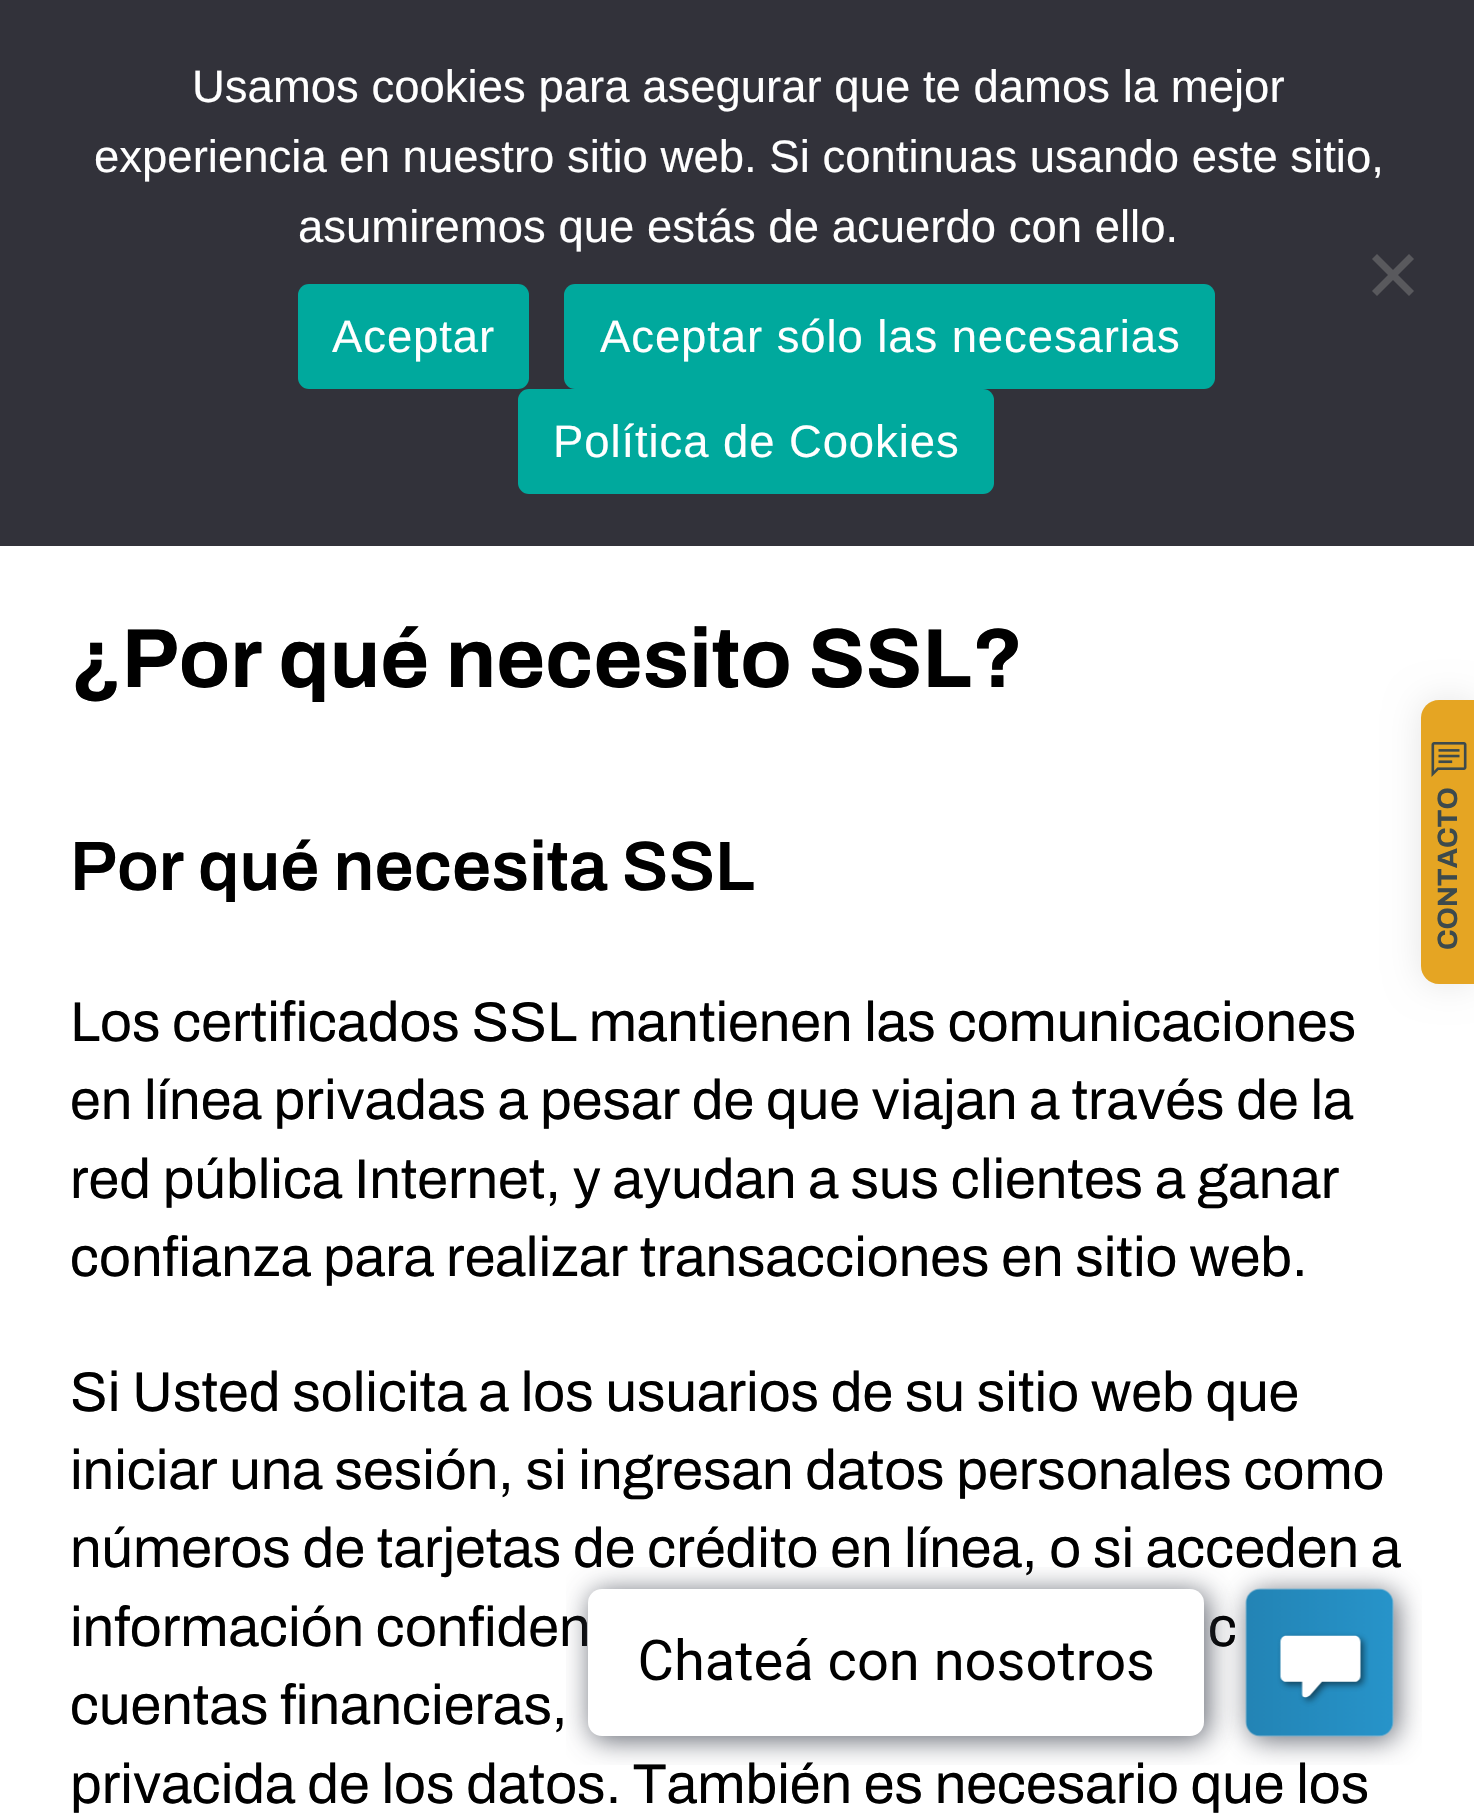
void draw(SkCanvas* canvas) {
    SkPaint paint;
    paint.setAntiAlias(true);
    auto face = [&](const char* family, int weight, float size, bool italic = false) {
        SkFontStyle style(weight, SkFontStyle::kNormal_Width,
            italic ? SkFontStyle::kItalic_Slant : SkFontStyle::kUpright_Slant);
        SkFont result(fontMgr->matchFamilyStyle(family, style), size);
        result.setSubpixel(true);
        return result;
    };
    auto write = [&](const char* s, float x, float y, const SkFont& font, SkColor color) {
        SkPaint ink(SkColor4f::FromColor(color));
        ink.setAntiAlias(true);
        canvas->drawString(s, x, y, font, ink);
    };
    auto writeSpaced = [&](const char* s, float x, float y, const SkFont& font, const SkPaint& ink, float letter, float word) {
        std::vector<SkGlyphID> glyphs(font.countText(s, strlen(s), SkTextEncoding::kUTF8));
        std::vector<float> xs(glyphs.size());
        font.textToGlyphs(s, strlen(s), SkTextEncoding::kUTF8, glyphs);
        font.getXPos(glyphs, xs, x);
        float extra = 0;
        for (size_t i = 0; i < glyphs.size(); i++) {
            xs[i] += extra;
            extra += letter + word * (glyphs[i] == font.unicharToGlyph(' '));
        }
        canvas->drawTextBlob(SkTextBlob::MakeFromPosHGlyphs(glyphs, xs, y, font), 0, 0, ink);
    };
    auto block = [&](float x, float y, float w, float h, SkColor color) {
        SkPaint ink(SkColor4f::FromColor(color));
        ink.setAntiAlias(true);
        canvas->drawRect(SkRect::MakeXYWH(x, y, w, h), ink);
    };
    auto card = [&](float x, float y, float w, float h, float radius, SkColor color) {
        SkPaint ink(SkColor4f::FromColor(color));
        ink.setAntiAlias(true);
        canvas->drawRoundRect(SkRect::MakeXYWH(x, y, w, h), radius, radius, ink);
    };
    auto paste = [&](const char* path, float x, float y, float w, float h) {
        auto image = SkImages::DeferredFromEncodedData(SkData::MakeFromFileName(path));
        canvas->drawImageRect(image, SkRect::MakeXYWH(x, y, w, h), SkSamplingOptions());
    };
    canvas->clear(SK_ColorWHITE);
    block(0, 0, 1474, 546, SkColorSetRGB(50, 50, 58));
    auto kFont1 = face("Liberation Sans", 400, 45.5f);
    write("Usamos cookies para asegurar que te damos la mejor", 192, 102, kFont1, SK_ColorWHITE);
    write("experiencia en nuestro sitio web. Si continuas usando este sitio,", 94, 172, kFont1, SK_ColorWHITE);
    write("asumiremos que estás de acuerdo con ello.", 298, 242, kFont1, SK_ColorWHITE);
    paint.setColor(SkColorSetRGB(89, 89, 93));
    canvas->drawPath(SkPathBuilder().moveTo(1409, 254).lineTo(1414, 259).lineTo(1377, 296).lineTo(1372, 291).close().detach(), paint);
    canvas->drawPath(SkPathBuilder().moveTo(1372, 259).lineTo(1377, 254).lineTo(1414, 291).lineTo(1409, 296).close().detach(), paint);
    card(298, 284, 231, 105, 11, SkColorSetRGB(0, 169, 157));
    paint.setColor(SK_ColorWHITE);
    writeSpaced("Aceptar", 332, 352, kFont1, paint, 0.9f, 0);
    card(564, 284, 651, 105, 11, SkColorSetRGB(0, 169, 157));
    writeSpaced("Aceptar sólo las necesarias", 600, 352, kFont1, paint, 0.9f, 0);
    card(518, 389, 476, 105, 11, SkColorSetRGB(0, 169, 157));
    writeSpaced("Política de Cookies", 553, 457, kFont1, paint, 0.9f, 0);
    auto kFont2 = face("Archivo", 700, 84);
    write("¿Por qué necesito SSL?", 70, 687, kFont2, SK_ColorBLACK);
    auto kFont3 = face("Archivo", 600, 70);
    write("Por qué necesita SSL", 70, 890, kFont3, SK_ColorBLACK);
    auto kFont4 = face("Archivo", 400, 56);
    write("Los certificados SSL mantienen las comunicaciones", 70, 1041, kFont4, SK_ColorBLACK);
    write("en línea privadas a pesar de que viajan a través de la", 70, 1119, kFont4, SK_ColorBLACK);
    write("red pública Internet, y ayudan a sus clientes a ganar", 70, 1198, kFont4, SK_ColorBLACK);
    write("confianza para realizar transacciones en sitio web.", 70, 1276, kFont4, SK_ColorBLACK);
    write("Si Usted solicita a los usuarios de su sitio web que", 70, 1411, kFont4, SK_ColorBLACK);
    write("iniciar una sesión, si ingresan datos personales como", 70, 1489, kFont4, SK_ColorBLACK);
    write("números de tarjetas de crédito en línea, o si acceden a", 70, 1567, kFont4, SK_ColorBLACK);
    write("información confiden", 70, 1646, kFont4, SK_ColorBLACK);
    write("c", 1208, 1646, kFont4, SK_ColorBLACK);
    write("cuentas financieras,", 70, 1724, kFont4, SK_ColorBLACK);
    write("privacida de los datos. También es necesario que los", 70, 1803, kFont4, SK_ColorBLACK);
    paint.setColor(SkColorSetARGB(26, 0, 0, 0));
    paint.setMaskFilter(SkMaskFilter::MakeBlur(kNormal_SkBlurStyle, 17.5f));
    canvas->drawRoundRect(SkRect::MakeXYWH(1421, 700, 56, 284), 18, 18, paint);
    paint.setMaskFilter(nullptr);
    paint.setColor(SkColorSetRGB(229, 165, 35));
    canvas->drawPath(SkPathBuilder().moveTo(1439, 700).lineTo(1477, 700).lineTo(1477, 984).lineTo(1439, 984).cubicTo(1429, 984, 1421, 976, 1421, 966).lineTo(1421, 718).cubicTo(1421, 708, 1429, 700, 1439, 700).close().detach(), paint);
    paste("pic1.png", 1431, 742, 36, 35);
    auto kFont5 = face("Archivo", 700, 28);
    canvas->save();
    canvas->rotate(-90, 1457, 950);
    write("CONTACTO", 1457, 950, kFont5, SkColorSetRGB(61, 74, 76));
    canvas->restore();
    paste("pic2.png", 566, 1567, 856, 198);
}
